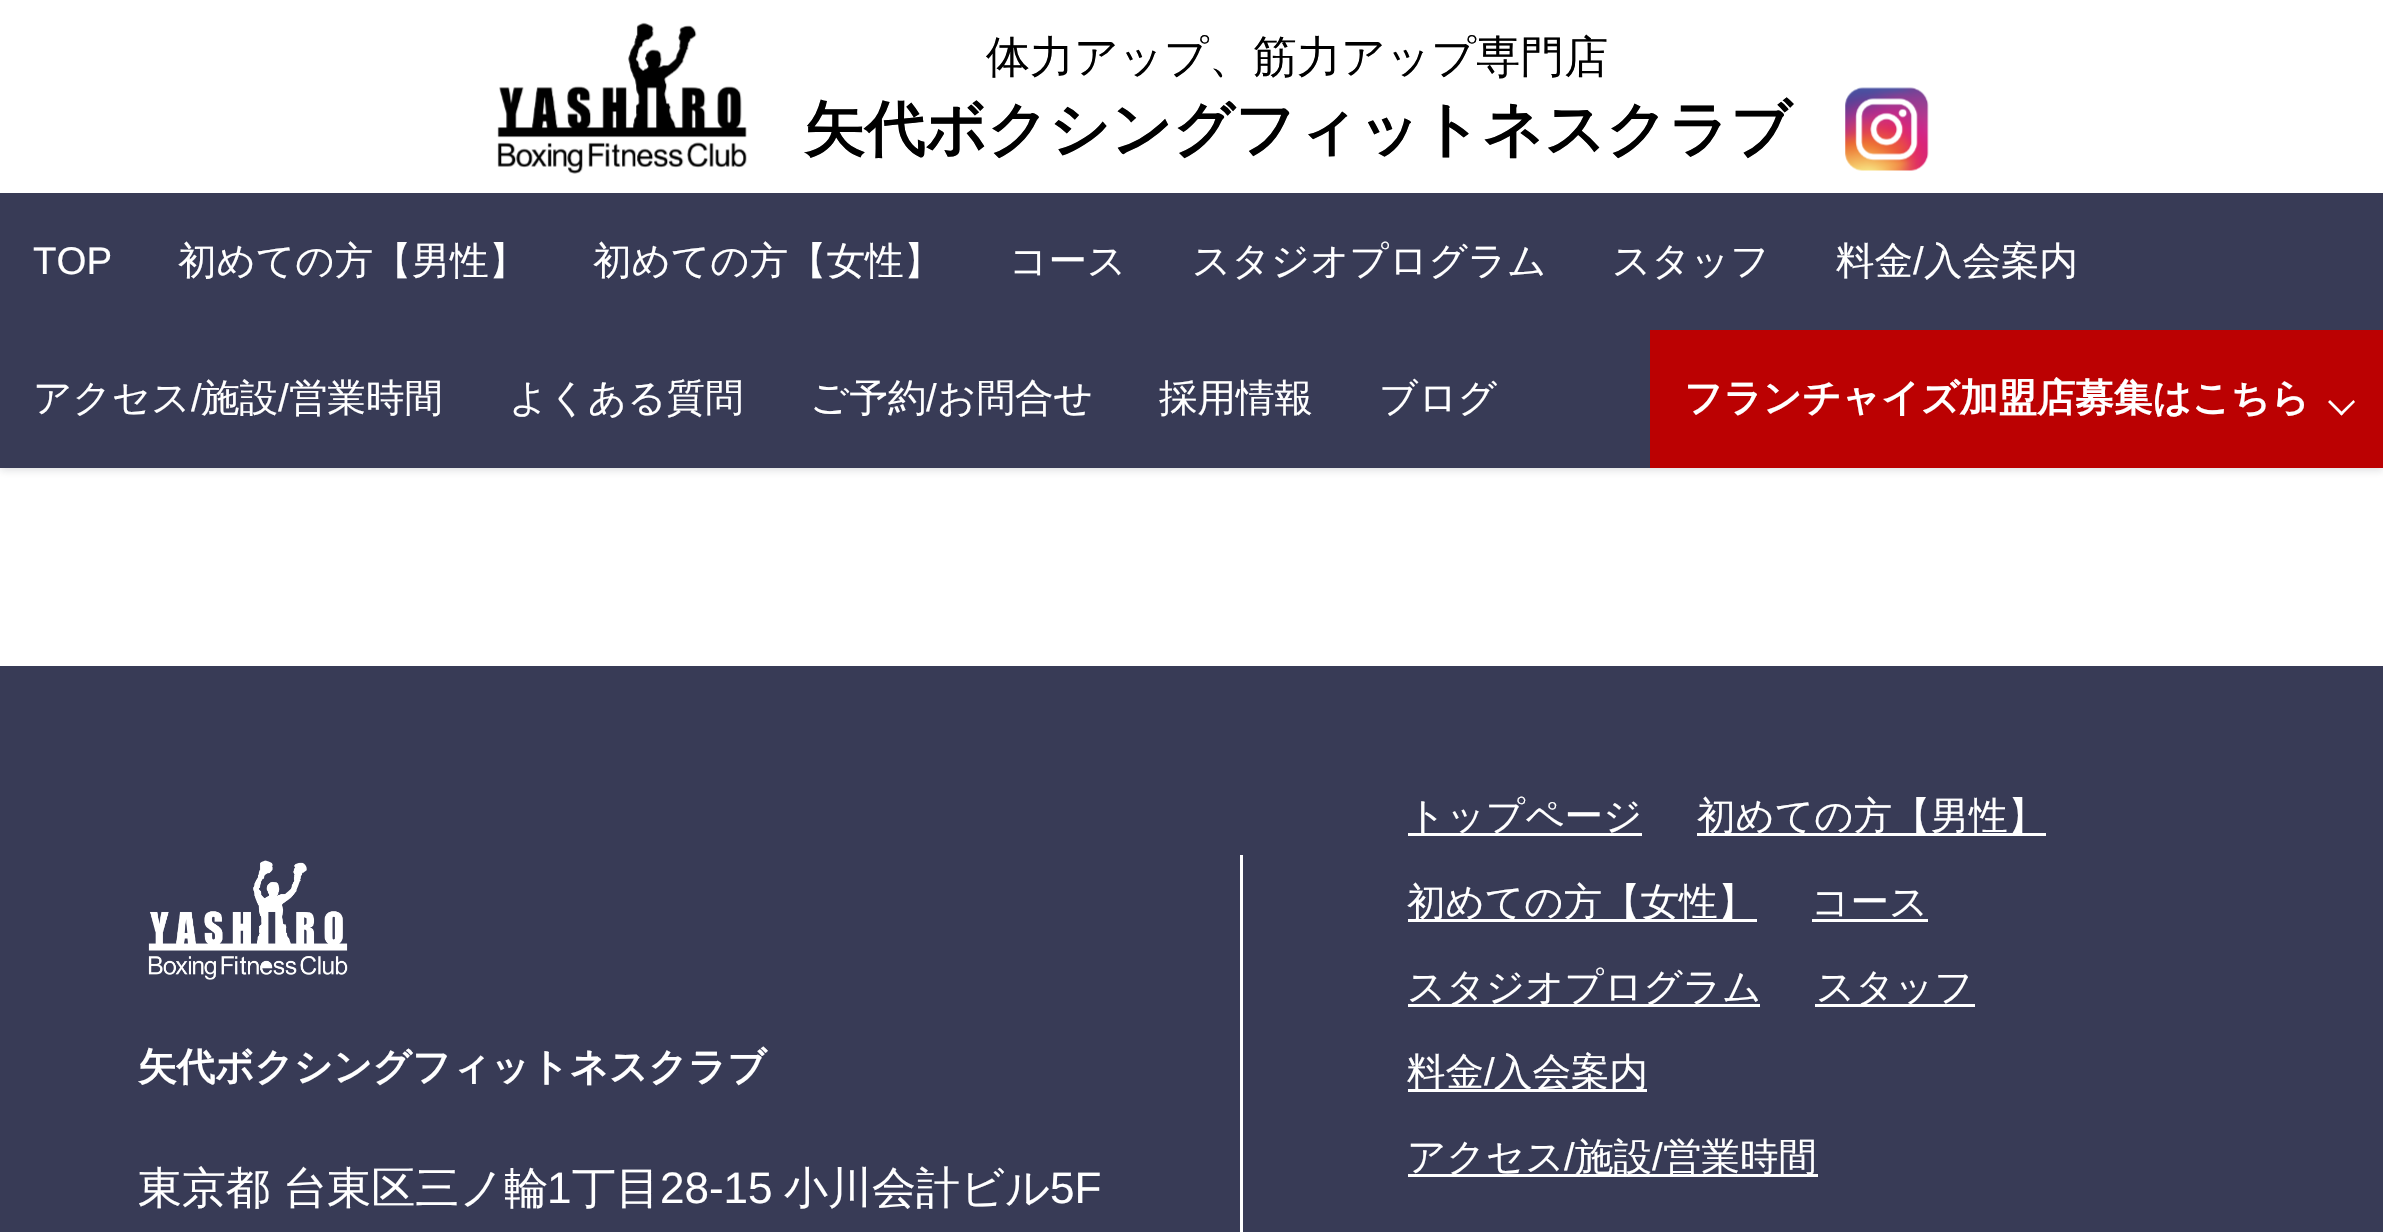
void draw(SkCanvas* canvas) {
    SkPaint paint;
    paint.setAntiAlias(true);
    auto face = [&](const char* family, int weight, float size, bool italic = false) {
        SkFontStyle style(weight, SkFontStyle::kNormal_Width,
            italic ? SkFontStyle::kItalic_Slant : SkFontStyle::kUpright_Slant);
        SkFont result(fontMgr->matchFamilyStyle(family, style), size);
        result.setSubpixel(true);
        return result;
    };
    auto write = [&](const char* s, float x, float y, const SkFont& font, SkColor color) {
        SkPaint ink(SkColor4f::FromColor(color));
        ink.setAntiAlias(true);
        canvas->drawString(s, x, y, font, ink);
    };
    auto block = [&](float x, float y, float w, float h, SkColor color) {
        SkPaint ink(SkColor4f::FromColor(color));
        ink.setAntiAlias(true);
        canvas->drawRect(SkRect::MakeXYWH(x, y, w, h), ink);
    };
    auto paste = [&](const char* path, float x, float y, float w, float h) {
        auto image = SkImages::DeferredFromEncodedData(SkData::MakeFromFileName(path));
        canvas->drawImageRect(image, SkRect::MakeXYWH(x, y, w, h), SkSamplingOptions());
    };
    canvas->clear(SK_ColorWHITE);
    paint.setColor(SkColorSetARGB(38, 21, 27, 38));
    paint.setMaskFilter(SkMaskFilter::MakeBlur(kNormal_SkBlurStyle, 4));
    canvas->drawRect(SkRect::MakeXYWH(0, 3, 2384, 467), paint);
    paint.setMaskFilter(nullptr);
    block(0, 0, 2383, 193, SK_ColorWHITE);
    paste("pic1.png", 497, 22, 250, 152);
    auto kFont1 = face("WenQuanYi Zen Hei", 500, 44);
    write("体力アップ、筋力アップ専門店", 986, 72, kFont1, SK_ColorBLACK);
    auto kFont2 = face("WenQuanYi Zen Hei", 700, 60.5f);
    write("矢代ボクシングフィットネスクラブ", 804, 150, kFont2, SK_ColorBLACK);
    paste("pic2.png", 1845, 87, 84, 84);
    block(0, 193, 2383, 275, SkColorSetRGB(56, 59, 86));
    auto kFont3 = face("Liberation Sans", 400, 38.5f);
    write("TOP", 33, 274, kFont3, SK_ColorWHITE);
    auto kFont4 = face("WenQuanYi Zen Hei", 500, 38.5f);
    write("初めての方【男性】", 178, 274, kFont4, SK_ColorWHITE);
    write("初めての方【女性】", 593, 274, kFont4, SK_ColorWHITE);
    write("コース", 1009, 274, kFont4, SK_ColorWHITE);
    write("スタジオプログラム", 1192, 274, kFont4, SK_ColorWHITE);
    write("スタッフ", 1612, 274, kFont4, SK_ColorWHITE);
    write("料金", 1836, 274, kFont4, SK_ColorWHITE);
    write("/", 1913, 274, kFont3, SK_ColorWHITE);
    write("入会案内", 1924, 274, kFont4, SK_ColorWHITE);
    write("アクセス", 33, 411, kFont4, SK_ColorWHITE);
    write("/", 191, 411, kFont3, SK_ColorWHITE);
    write("施設", 201, 411, kFont4, SK_ColorWHITE);
    write("/", 278, 411, kFont3, SK_ColorWHITE);
    write("営業時間", 289, 411, kFont4, SK_ColorWHITE);
    write("よくある質問", 509, 411, kFont4, SK_ColorWHITE);
    write("ご予約", 810, 411, kFont4, SK_ColorWHITE);
    write("/", 926, 411, kFont3, SK_ColorWHITE);
    write("お問合せ", 937, 411, kFont4, SK_ColorWHITE);
    write("採用情報", 1159, 411, kFont4, SK_ColorWHITE);
    write("ブログ", 1379, 411, kFont4, SK_ColorWHITE);
    block(1650, 330, 733, 138, SkColorSetRGB(187, 1, 2));
    auto kFont5 = face("WenQuanYi Zen Hei", 700, 38.5f);
    write("フランチャイズ加盟店募集はこちら", 1684, 411, kFont5, SK_ColorWHITE);
    paint.setColor(SK_ColorWHITE);
    canvas->drawPath(SkPathBuilder().moveTo(2353.5f, 400).lineTo(2355, 402).lineTo(2341.5f, 415.5f).lineTo(2339.5f, 413.5f).close().detach(), paint);
    canvas->drawPath(SkPathBuilder().moveTo(2330, 400).lineTo(2343.5f, 413.5f).lineTo(2341.5f, 415.5f).lineTo(2328, 402).close().detach(), paint);
    block(0, 666, 2383, 566, SkColorSetRGB(56, 59, 86));
    block(1240, 855, 3, 377, SK_ColorWHITE);
    paste("pic3.png", 148, 860, 200, 120);
    write("矢代ボクシングフィットネスクラブ", 138, 1080, kFont5, SK_ColorWHITE);
    write("東京都 台東区三ノ輪", 138, 1203, kFont1, SK_ColorWHITE);
    auto kFont6 = face("Liberation Sans", 400, 44);
    write("1", 547, 1203, kFont6, SK_ColorWHITE);
    write("丁目", 572, 1203, kFont1, SK_ColorWHITE);
    write("28-15", 660, 1203, kFont6, SK_ColorWHITE);
    write("小川会計ビル", 784, 1203, kFont1, SK_ColorWHITE);
    write("5F", 1050, 1203, kFont6, SK_ColorWHITE);
    block(1408, 833, 234, 3, SK_ColorWHITE);
    write("トップページ", 1407, 829, kFont4, SK_ColorWHITE);
    block(1697, 833, 349, 3, SK_ColorWHITE);
    write("初めての方【男性】", 1697, 829, kFont4, SK_ColorWHITE);
    block(1408, 919, 349, 3, SK_ColorWHITE);
    write("初めての方【女性】", 1407, 915, kFont4, SK_ColorWHITE);
    write("コース", 1811, 915, kFont4, SK_ColorWHITE);
    block(1812, 919, 116, 3, SK_ColorWHITE);
    block(1408, 1004, 352, 3, SK_ColorWHITE);
    write("スタジオプログラム", 1407, 1000, kFont4, SK_ColorWHITE);
    block(1815, 1004, 160, 3, SK_ColorWHITE);
    write("スタッフ", 1816, 1000, kFont4, SK_ColorWHITE);
    block(1408, 1089, 239, 3, SK_ColorWHITE);
    write("料金", 1407, 1085, kFont4, SK_ColorWHITE);
    write("/", 1484, 1085, kFont3, SK_ColorWHITE);
    write("入会案内", 1494, 1085, kFont4, SK_ColorWHITE);
    block(1408, 1174, 410, 3, SK_ColorWHITE);
    write("アクセス", 1407, 1170, kFont4, SK_ColorWHITE);
    write("/", 1564, 1170, kFont3, SK_ColorWHITE);
    write("施設", 1575, 1170, kFont4, SK_ColorWHITE);
    write("/", 1652, 1170, kFont3, SK_ColorWHITE);
    write("営業時間", 1663, 1170, kFont4, SK_ColorWHITE);
}
